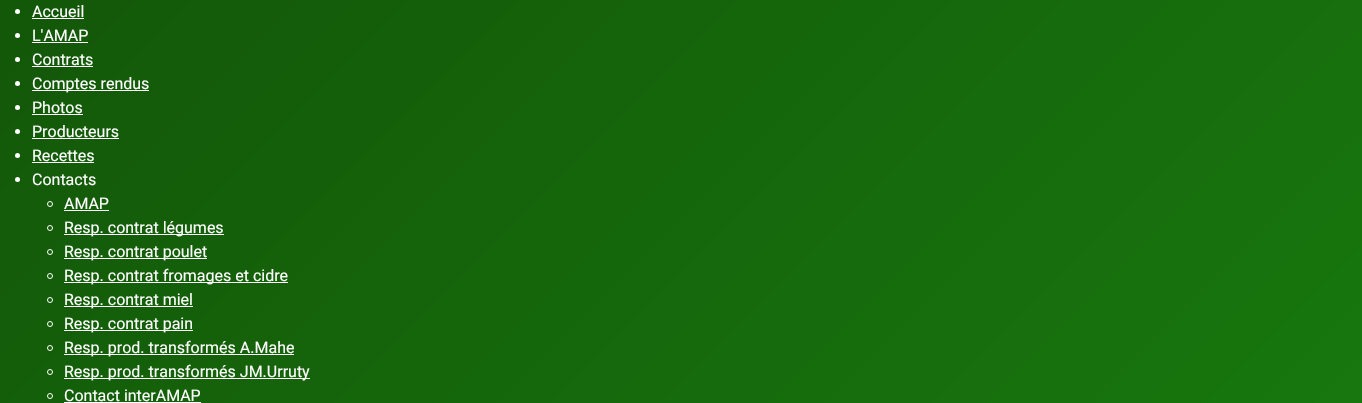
void draw(SkCanvas* canvas) {
    SkPaint paint;
    paint.setAntiAlias(true);
    auto face = [&](const char* family, int weight, float size, bool italic = false) {
        SkFontStyle style(weight, SkFontStyle::kNormal_Width,
            italic ? SkFontStyle::kItalic_Slant : SkFontStyle::kUpright_Slant);
        SkFont result(fontMgr->matchFamilyStyle(family, style), size);
        result.setSubpixel(true);
        return result;
    };
    auto write = [&](const char* s, float x, float y, const SkFont& font, SkColor color) {
        SkPaint ink(SkColor4f::FromColor(color));
        ink.setAntiAlias(true);
        canvas->drawString(s, x, y, font, ink);
    };
    auto block = [&](float x, float y, float w, float h, SkColor color) {
        SkPaint ink(SkColor4f::FromColor(color));
        ink.setAntiAlias(true);
        canvas->drawRect(SkRect::MakeXYWH(x, y, w, h), ink);
    };
    canvas->clear(SK_ColorWHITE);
    {
        const SkColor colors[] = {SkColorSetRGB(19, 87, 9), SkColorSetRGB(24, 122, 14)};
        const float stops[] = {0, 1};
        const SkPoint ends[] = {{205, -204}, {1158, 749}};
        paint.setShader(SkGradientShader::MakeLinear(ends, colors, stops, 2, SkTileMode::kClamp));
        paint.setAlpha(255);
    }
    canvas->drawRect(SkRect::MakeXYWH(0, 0, 1362, 403), paint);
    paint.setShader(nullptr);
    paint.setColor(SK_ColorWHITE);
    canvas->drawCircle(17.5f, 11.5f, 2.5f, paint);
    auto kFont1 = face("Roboto", 400, 16);
    write("Accueil", 32, 17, kFont1, SK_ColorWHITE);
    block(32, 18, 52, 1, SK_ColorWHITE);
    canvas->drawCircle(17.5f, 35.5f, 2.5f, paint);
    write("L'AMAP", 32, 41, kFont1, SK_ColorWHITE);
    block(32, 42, 56, 1, SK_ColorWHITE);
    canvas->drawCircle(17.5f, 59.5f, 2.5f, paint);
    write("Contrats", 32, 65, kFont1, SK_ColorWHITE);
    block(32, 66, 61, 1, SK_ColorWHITE);
    canvas->drawCircle(17.5f, 83.5f, 2.5f, paint);
    block(32, 90, 117, 1, SK_ColorWHITE);
    write("Comptes rendus", 32, 89, kFont1, SK_ColorWHITE);
    canvas->drawCircle(17.5f, 107.5f, 2.5f, paint);
    write("Photos", 32, 113, kFont1, SK_ColorWHITE);
    block(32, 114, 51, 1, SK_ColorWHITE);
    canvas->drawCircle(17.5f, 131.5f, 2.5f, paint);
    write("Producteurs", 32, 137, kFont1, SK_ColorWHITE);
    block(32, 138, 87, 1, SK_ColorWHITE);
    canvas->drawCircle(17.5f, 155.5f, 2.5f, paint);
    write("Recettes", 32, 161, kFont1, SK_ColorWHITE);
    block(32, 162, 62, 1, SK_ColorWHITE);
    canvas->drawCircle(17.5f, 179.5f, 2.5f, paint);
    write("Contacts", 32, 185, kFont1, SK_ColorWHITE);
    paint.setStyle(SkPaint::kStroke_Style);
    paint.setStrokeWidth(1);
    canvas->drawCircle(50, 204, 2.5f, paint);
    write("AMAP", 64, 209, kFont1, SK_ColorWHITE);
    block(64, 210, 45, 1, SK_ColorWHITE);
    canvas->drawCircle(50, 228, 2.5f, paint);
    block(64, 234, 160, 1, SK_ColorWHITE);
    write("Resp. contrat légumes", 64, 233, kFont1, SK_ColorWHITE);
    canvas->drawCircle(50, 252, 2.5f, paint);
    block(64, 258, 143, 1, SK_ColorWHITE);
    write("Resp. contrat poulet", 64, 257, kFont1, SK_ColorWHITE);
    canvas->drawCircle(50, 276, 2.5f, paint);
    block(64, 282, 224, 1, SK_ColorWHITE);
    write("Resp. contrat fromages et cidre", 64, 281, kFont1, SK_ColorWHITE);
    canvas->drawCircle(50, 300, 2.5f, paint);
    block(64, 306, 129, 1, SK_ColorWHITE);
    write("Resp. contrat miel", 64, 305, kFont1, SK_ColorWHITE);
    canvas->drawCircle(50, 324, 2.5f, paint);
    block(64, 330, 129, 1, SK_ColorWHITE);
    write("Resp. contrat pain", 64, 329, kFont1, SK_ColorWHITE);
    canvas->drawCircle(50, 348, 2.5f, paint);
    block(64, 354, 230, 1, SK_ColorWHITE);
    write("Resp. prod. transformés A.Mahe", 64, 353, kFont1, SK_ColorWHITE);
    canvas->drawCircle(50, 372, 2.5f, paint);
    block(64, 378, 246, 1, SK_ColorWHITE);
    write("Resp. prod. transformés JM.Urruty", 64, 377, kFont1, SK_ColorWHITE);
    canvas->drawCircle(50, 396, 2.5f, paint);
    write("Contact interAMAP", 64, 401, kFont1, SK_ColorWHITE);
    block(64, 402, 137, 1, SK_ColorWHITE);
}
